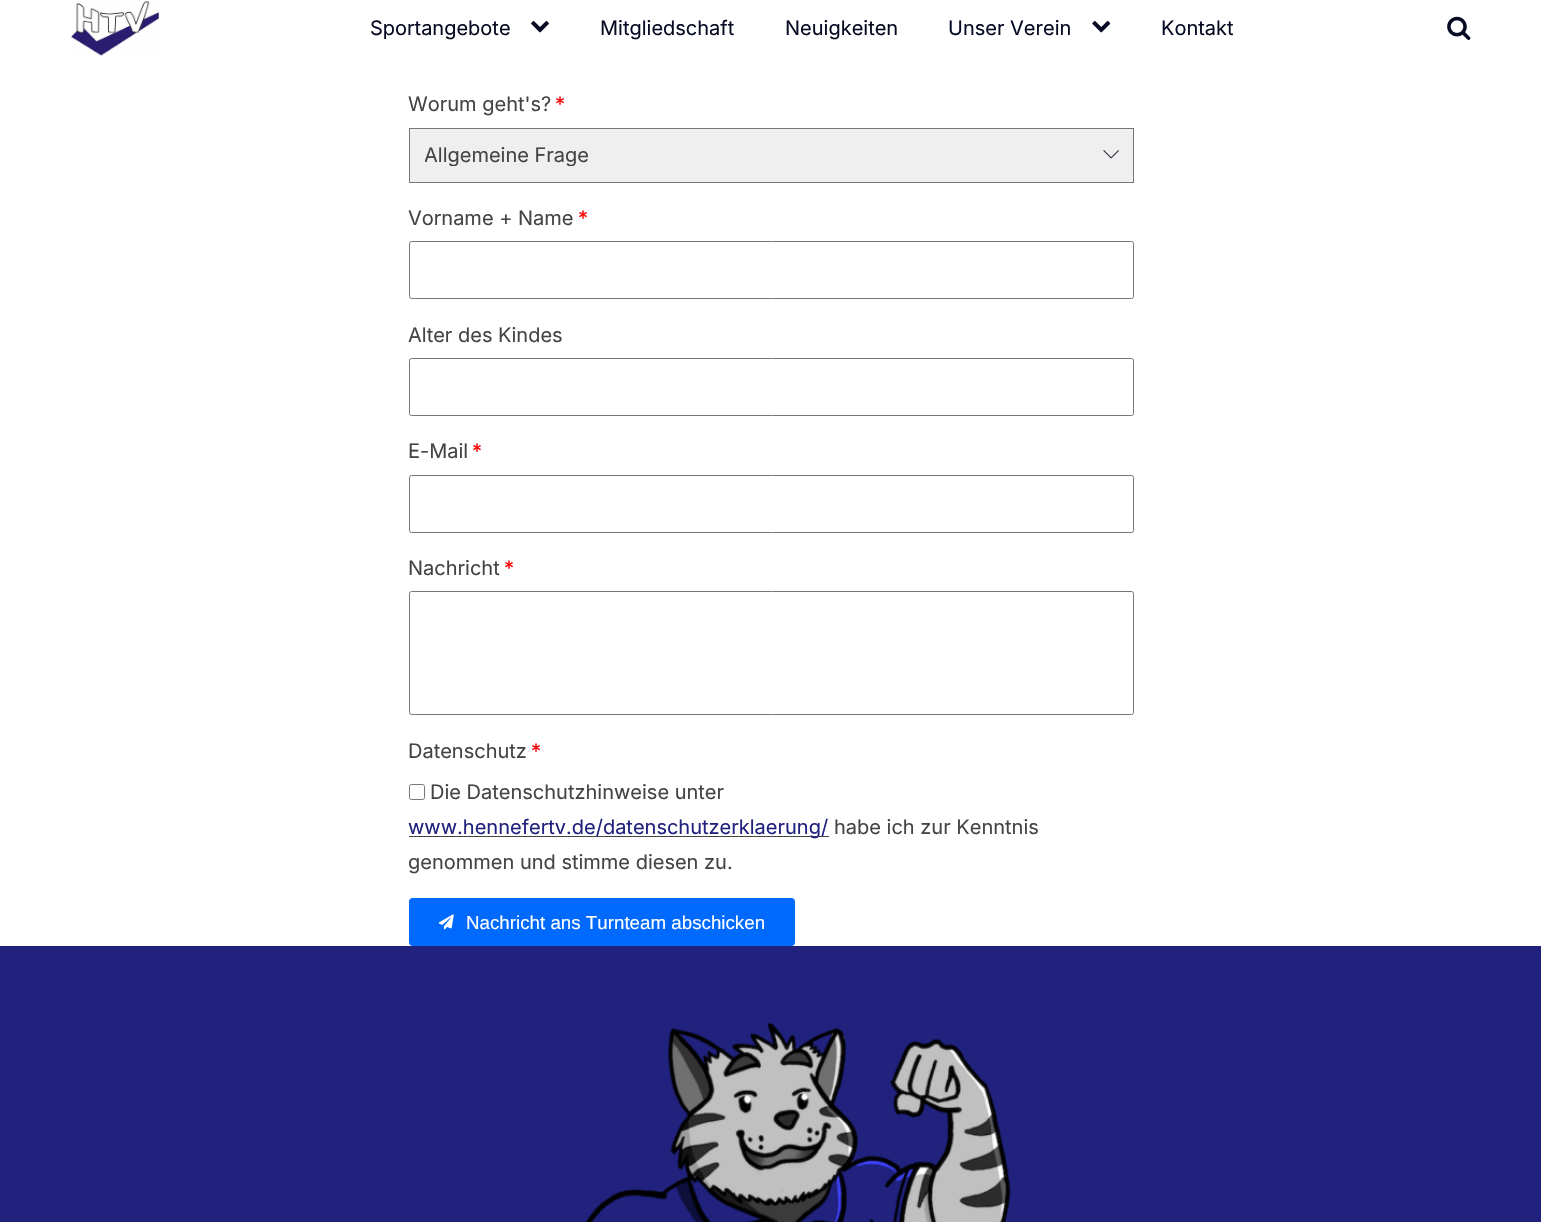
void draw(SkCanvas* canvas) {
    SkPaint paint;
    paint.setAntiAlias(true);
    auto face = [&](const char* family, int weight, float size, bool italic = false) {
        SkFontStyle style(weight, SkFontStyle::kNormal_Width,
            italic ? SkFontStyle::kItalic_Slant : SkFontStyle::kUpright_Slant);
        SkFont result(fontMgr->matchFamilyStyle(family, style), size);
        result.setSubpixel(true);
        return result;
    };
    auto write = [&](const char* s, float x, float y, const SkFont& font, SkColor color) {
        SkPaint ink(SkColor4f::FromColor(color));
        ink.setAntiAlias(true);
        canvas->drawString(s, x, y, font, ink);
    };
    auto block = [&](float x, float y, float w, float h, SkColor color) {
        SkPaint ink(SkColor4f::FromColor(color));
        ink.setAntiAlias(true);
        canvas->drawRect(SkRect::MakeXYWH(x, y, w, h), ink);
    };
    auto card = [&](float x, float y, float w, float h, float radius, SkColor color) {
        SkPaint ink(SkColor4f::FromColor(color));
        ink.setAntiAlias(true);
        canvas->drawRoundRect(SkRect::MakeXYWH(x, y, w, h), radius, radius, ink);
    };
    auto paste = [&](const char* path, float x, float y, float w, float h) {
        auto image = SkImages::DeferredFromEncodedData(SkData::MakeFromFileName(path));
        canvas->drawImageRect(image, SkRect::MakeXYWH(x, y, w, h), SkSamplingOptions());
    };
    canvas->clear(SK_ColorWHITE);
    paste("pic1.png", 71, 1, 88, 55);
    auto kFont1 = face("Inter", 400, 20);
    write("Sportangebote", 370, 35, kFont1, SkColorSetRGB(6, 11, 35));
    paste("pic2.png", 531, 20, 18, 13);
    write("Mitgliedschaft", 600, 35, kFont1, SkColorSetRGB(6, 11, 35));
    write("Neuigkeiten", 785, 35, kFont1, SkColorSetRGB(6, 11, 35));
    write("Unser Verein", 948, 35, kFont1, SkColorSetRGB(6, 11, 35));
    paste("pic3.png", 1092, 20, 19, 13);
    write("Kontakt", 1161, 35, kFont1, SkColorSetRGB(6, 11, 35));
    paste("pic4.png", 1447, 16, 24, 24);
    write("Worum geht's?", 408, 111, kFont1, SkColorSetRGB(68, 68, 68));
    write("*", 555, 111, kFont1, SkColorSetRGB(255, 0, 0));
    paint.setColor(SkColorSetRGB(239, 239, 239));
    canvas->drawRect(SkRect::MakeXYWH(409.5f, 128.5f, 724, 54), paint);
    paint.setStyle(SkPaint::kStroke_Style);
    paint.setStrokeWidth(1);
    paint.setColor(SkColorSetRGB(118, 118, 118));
    canvas->drawRect(SkRect::MakeXYWH(409.5f, 128.5f, 724, 54), paint);
    canvas->save();
    canvas->clipRect(SkRect::MakeXYWH(425, 144, 693, 22));
    write("Allgemeine Frage", 424, 162, kFont1, SkColorSetRGB(68, 68, 68));
    canvas->restore();
    paste("pic5.png", 1103, 150, 16, 9);
    write("Vorname + Name", 408, 225, kFont1, SkColorSetRGB(68, 68, 68));
    write("*", 578, 225, kFont1, SkColorSetRGB(255, 0, 0));
    canvas->drawRoundRect(SkRect::MakeXYWH(409.5f, 241.5f, 724, 57), 2, 2, paint);
    write("Alter des Kindes", 408, 342, kFont1, SkColorSetRGB(68, 68, 68));
    canvas->drawRoundRect(SkRect::MakeXYWH(409.5f, 358.5f, 724, 57), 2, 2, paint);
    write("E-Mail", 408, 458, kFont1, SkColorSetRGB(68, 68, 68));
    write("*", 472, 458, kFont1, SkColorSetRGB(255, 0, 0));
    canvas->drawRoundRect(SkRect::MakeXYWH(409.5f, 475.5f, 724, 57), 2, 2, paint);
    write("Nachricht", 408, 575, kFont1, SkColorSetRGB(68, 68, 68));
    write("*", 504, 575, kFont1, SkColorSetRGB(255, 0, 0));
    canvas->drawRoundRect(SkRect::MakeXYWH(409.5f, 591.5f, 724, 123), 2, 2, paint);
    write("Datenschutz", 408, 758, kFont1, SkColorSetRGB(68, 68, 68));
    write("*", 531, 758, kFont1, SkColorSetRGB(255, 0, 0));
    canvas->drawRoundRect(SkRect::MakeXYWH(409.5f, 784.5f, 15, 15), 2, 2, paint);
    write("Die Datenschutzhinweise unter", 430, 799, kFont1, SkColorSetRGB(68, 68, 68));
    block(409, 836, 420, 1, SkColorSetRGB(68, 68, 68));
    write("www.hennefertv.de/datenschutzerklaerung/", 408, 834, kFont1, SkColorSetRGB(32, 34, 126));
    write("habe ich zur Kenntnis", 834, 834, kFont1, SkColorSetRGB(68, 68, 68));
    write("genommen und stimme diesen zu.", 408, 869, kFont1, SkColorSetRGB(68, 68, 68));
    card(409, 898, 386, 48, 4, SkColorSetRGB(0, 106, 254));
    paste("pic6.png", 438, 914, 16, 16);
    auto kFont2 = face("Liberation Sans", 400, 18.75f);
    write("Nachricht ans Turnteam abschicken", 466, 929, kFont2, SK_ColorWHITE);
    block(0, 946, 1541, 276, SkColorSetRGB(32, 34, 126));
    paste("pic7.png", 585, 1022, 426, 200);
}
